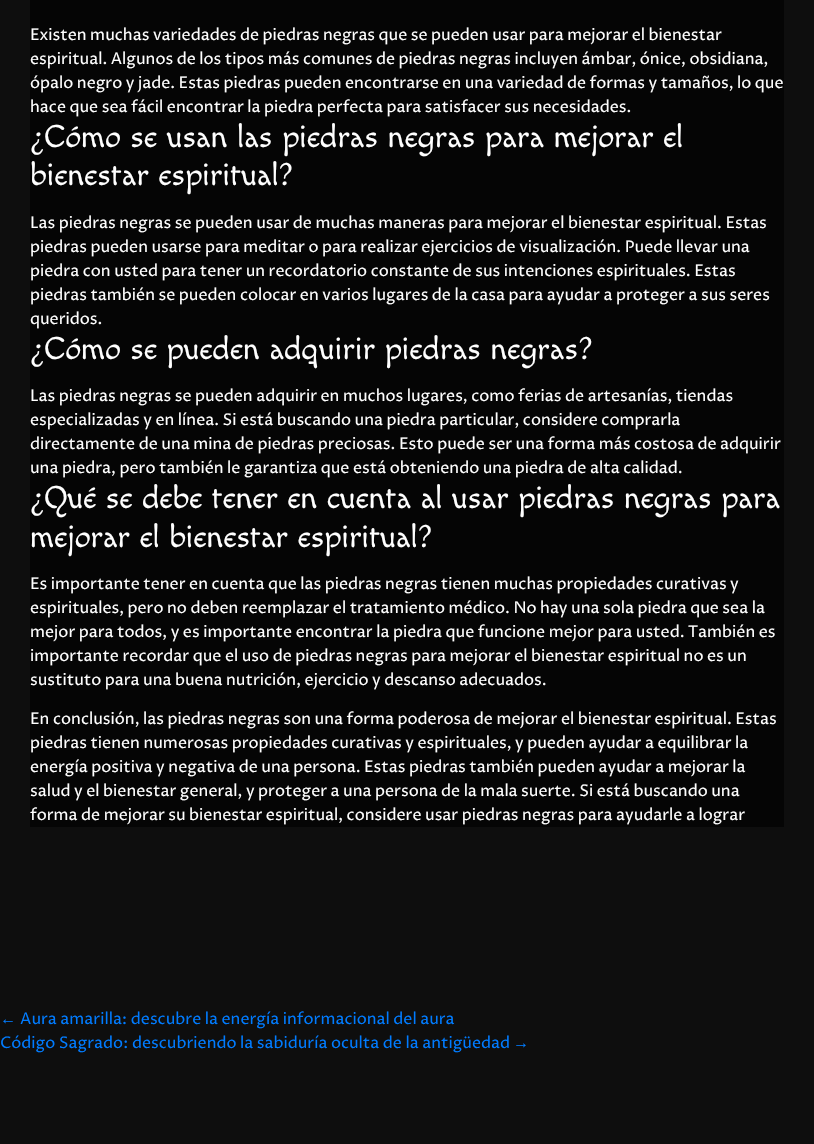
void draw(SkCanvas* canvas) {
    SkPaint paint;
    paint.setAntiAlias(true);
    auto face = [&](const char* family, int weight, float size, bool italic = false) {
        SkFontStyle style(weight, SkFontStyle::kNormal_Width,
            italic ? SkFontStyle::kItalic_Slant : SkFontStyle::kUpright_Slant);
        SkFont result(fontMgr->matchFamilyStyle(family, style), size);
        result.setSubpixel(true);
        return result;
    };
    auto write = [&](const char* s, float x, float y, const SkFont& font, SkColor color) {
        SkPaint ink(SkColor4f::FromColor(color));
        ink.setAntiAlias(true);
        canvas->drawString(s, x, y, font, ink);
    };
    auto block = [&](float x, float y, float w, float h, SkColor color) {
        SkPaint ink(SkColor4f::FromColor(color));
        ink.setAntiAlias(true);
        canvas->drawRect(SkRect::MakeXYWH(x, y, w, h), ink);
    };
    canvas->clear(SkColorSetRGB(14, 14, 14));
    block(30, 0, 754, 827, SkColorSetRGB(5, 5, 5));
    auto kFont1 = face("Proza Libre", 400, 16);
    write("Existen muchas variedades de piedras negras que se pueden usar para mejorar el bienestar", 30, 40, kFont1, SK_ColorWHITE);
    write("espiritual. Algunos de los tipos más comunes de piedras negras incluyen ámbar, ónice, obsidiana,", 30, 64, kFont1, SK_ColorWHITE);
    write("ópalo negro y jade. Estas piedras pueden encontrarse en una variedad de formas y tamaños, lo que", 30, 88, kFont1, SK_ColorWHITE);
    write("hace que sea fácil encontrar la piedra perfecta para satisfacer sus necesidades.", 30, 112, kFont1, SK_ColorWHITE);
    auto kFont2 = face("Macondo", 400, 32);
    write("¿Cómo se usan las piedras negras para mejorar el", 30, 147, kFont2, SK_ColorWHITE);
    write("bienestar espiritual?", 30, 185, kFont2, SK_ColorWHITE);
    write("Las piedras negras se pueden usar de muchas maneras para mejorar el bienestar espiritual. Estas", 30, 228, kFont1, SK_ColorWHITE);
    write("piedras pueden usarse para meditar o para realizar ejercicios de visualización. Puede llevar una", 30, 252, kFont1, SK_ColorWHITE);
    write("piedra con usted para tener un recordatorio constante de sus intenciones espirituales. Estas", 30, 276, kFont1, SK_ColorWHITE);
    write("piedras también se pueden colocar en varios lugares de la casa para ayudar a proteger a sus seres", 30, 300, kFont1, SK_ColorWHITE);
    write("queridos.", 30, 324, kFont1, SK_ColorWHITE);
    write("¿Cómo se pueden adquirir piedras negras?", 30, 359, kFont2, SK_ColorWHITE);
    write("Las piedras negras se pueden adquirir en muchos lugares, como ferias de artesanías, tiendas", 30, 401, kFont1, SK_ColorWHITE);
    write("especializadas y en línea. Si está buscando una piedra particular, considere comprarla", 30, 425, kFont1, SK_ColorWHITE);
    write("directamente de una mina de piedras preciosas. Esto puede ser una forma más costosa de adquirir", 30, 449, kFont1, SK_ColorWHITE);
    write("una piedra, pero también le garantiza que está obteniendo una piedra de alta calidad.", 30, 473, kFont1, SK_ColorWHITE);
    write("¿Qué se debe tener en cuenta al usar piedras negras para", 30, 508, kFont2, SK_ColorWHITE);
    write("mejorar el bienestar espiritual?", 30, 547, kFont2, SK_ColorWHITE);
    write("Es importante tener en cuenta que las piedras negras tienen muchas propiedades curativas y", 30, 589, kFont1, SK_ColorWHITE);
    write("espirituales, pero no deben reemplazar el tratamiento médico. No hay una sola piedra que sea la", 30, 613, kFont1, SK_ColorWHITE);
    write("mejor para todos, y es importante encontrar la piedra que funcione mejor para usted. También es", 30, 637, kFont1, SK_ColorWHITE);
    write("importante recordar que el uso de piedras negras para mejorar el bienestar espiritual no es un", 30, 661, kFont1, SK_ColorWHITE);
    write("sustituto para una buena nutrición, ejercicio y descanso adecuados.", 30, 685, kFont1, SK_ColorWHITE);
    write("En conclusión, las piedras negras son una forma poderosa de mejorar el bienestar espiritual. Estas", 30, 724, kFont1, SK_ColorWHITE);
    write("piedras tienen numerosas propiedades curativas y espirituales, y pueden ayudar a equilibrar la", 30, 748, kFont1, SK_ColorWHITE);
    write("energía positiva y negativa de una persona. Estas piedras también pueden ayudar a mejorar la", 30, 772, kFont1, SK_ColorWHITE);
    write("salud y el bienestar general, y proteger a una persona de la mala suerte. Si está buscando una", 30, 796, kFont1, SK_ColorWHITE);
    write("forma de mejorar su bienestar espiritual, considere usar piedras negras para ayudarle a lograr", 30, 820, kFont1, SK_ColorWHITE);
    auto kFont3 = face("Liberation Sans", 400, 16);
    write("←", 0, 1024, kFont3, SkColorSetRGB(0, 123, 255));
    write("Aura amarilla: descubre la energía informacional del aura", 20, 1024, kFont1, SkColorSetRGB(0, 123, 255));
    write("Código Sagrado: descubriendo la sabiduría oculta de la antigüedad", 0, 1048, kFont1, SkColorSetRGB(0, 123, 255));
    write("→", 513, 1048, kFont3, SkColorSetRGB(0, 123, 255));
}
